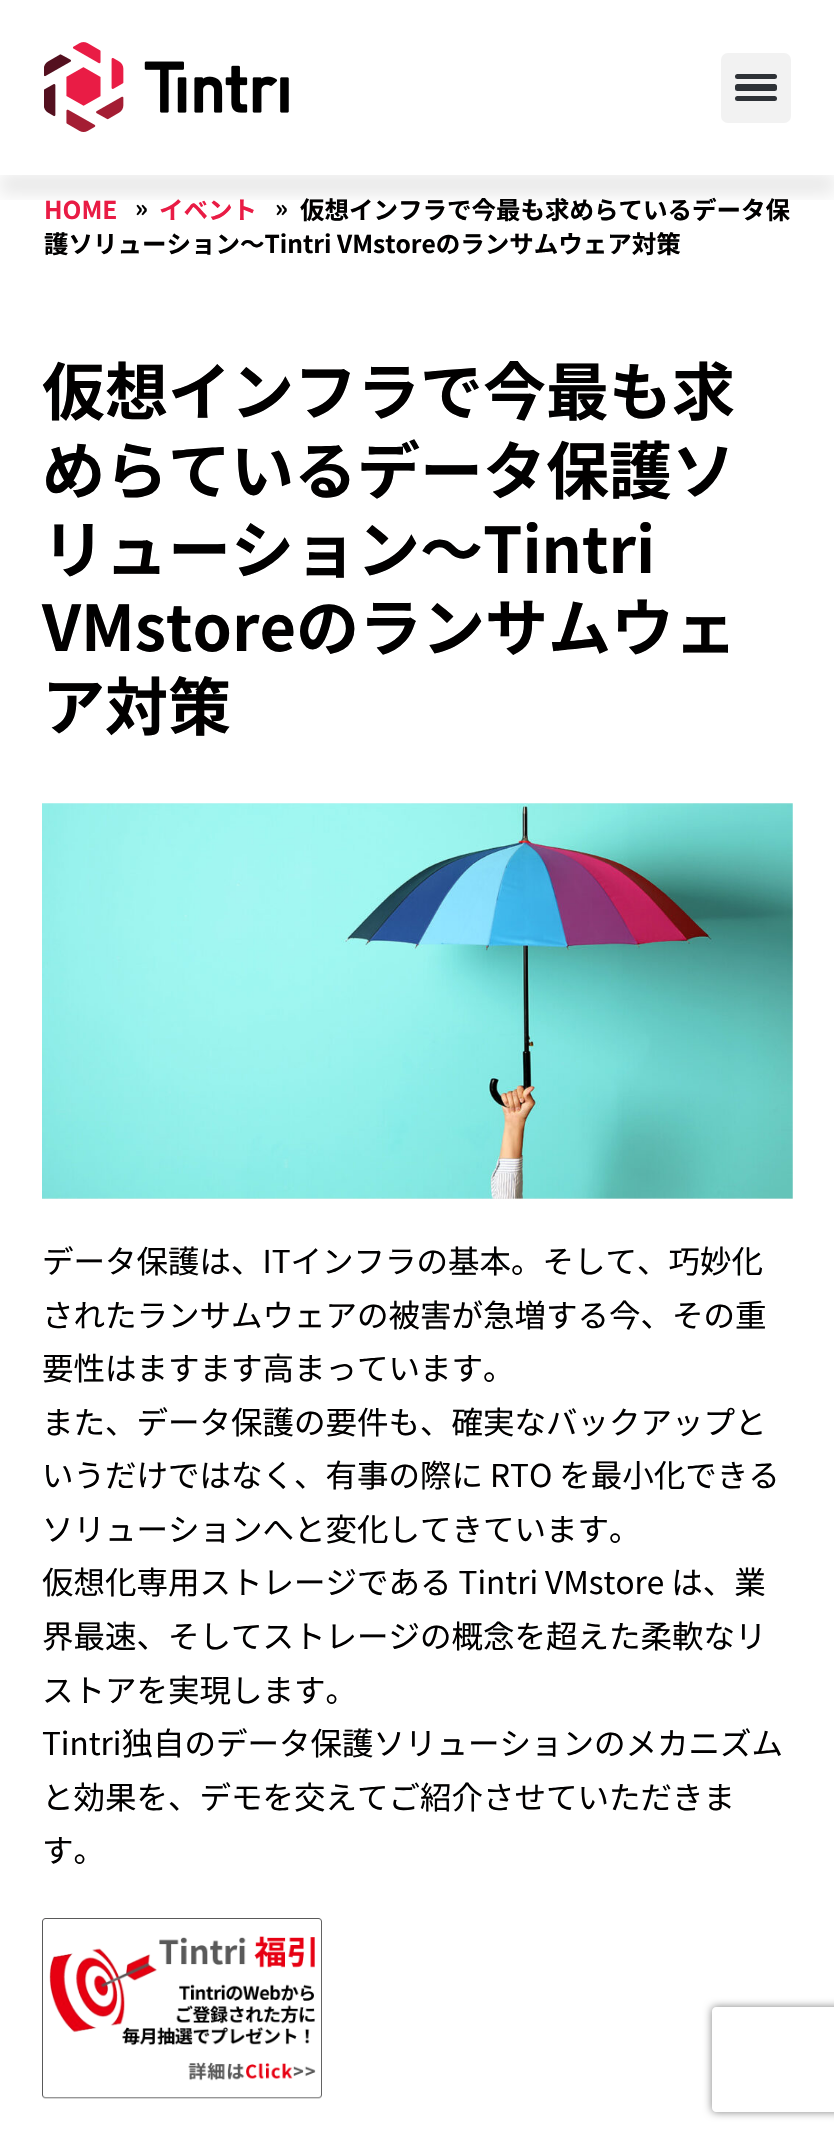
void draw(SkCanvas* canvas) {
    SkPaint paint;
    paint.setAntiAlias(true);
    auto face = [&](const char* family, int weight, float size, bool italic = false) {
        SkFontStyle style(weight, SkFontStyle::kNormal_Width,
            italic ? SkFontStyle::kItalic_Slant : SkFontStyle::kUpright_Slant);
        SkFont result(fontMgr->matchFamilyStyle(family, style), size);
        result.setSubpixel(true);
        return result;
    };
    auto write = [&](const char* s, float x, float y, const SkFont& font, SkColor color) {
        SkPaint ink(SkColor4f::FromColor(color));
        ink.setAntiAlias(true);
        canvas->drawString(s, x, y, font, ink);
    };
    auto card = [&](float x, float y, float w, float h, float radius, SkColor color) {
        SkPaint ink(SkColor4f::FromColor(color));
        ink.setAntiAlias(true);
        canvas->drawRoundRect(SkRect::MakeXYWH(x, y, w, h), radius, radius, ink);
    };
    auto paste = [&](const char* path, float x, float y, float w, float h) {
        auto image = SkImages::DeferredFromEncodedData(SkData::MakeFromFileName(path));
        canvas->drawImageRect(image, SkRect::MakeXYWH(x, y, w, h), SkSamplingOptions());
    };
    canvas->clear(SK_ColorWHITE);
    paste("pic1.png", 44, 42, 245, 90);
    card(721, 53, 70, 70, 7, SkColorSetRGB(242, 242, 242));
    card(735, 84, 42, 7, 2.5f, SkColorSetRGB(46, 50, 55));
    card(735, 74, 42, 5, 2.5f, SkColorSetRGB(46, 50, 55));
    card(735, 96, 42, 5, 2.5f, SkColorSetRGB(46, 50, 55));
    canvas->save();
    canvas->clipRect(SkRect::MakeXYWH(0, 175, 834, 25));
    paint.setColor(SkColorSetARGB(26, 0, 0, 0));
    paint.setMaskFilter(SkMaskFilter::MakeBlur(kNormal_SkBlurStyle, 9));
    canvas->drawRect(SkRect::MakeXYWH(0, 175, 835, 18), paint);
    paint.setMaskFilter(nullptr);
    canvas->restore();
    auto kFont1 = face("Noto Sans JP", 700, 24.5f);
    write("»", 275, 217, kFont1, SkColorSetRGB(1, 0, 0));
    write("仮想インフラで今最も求めらているデータ保", 300, 219, kFont1, SkColorSetRGB(1, 0, 0));
    write("護ソリューション～Tintri VMstoreのランサムウェア対策", 44, 253, kFont1, SkColorSetRGB(1, 0, 0));
    write("HOME", 44, 219, kFont1, SkColorSetRGB(233, 28, 69));
    write("»", 135, 217, kFont1, SkColorSetRGB(1, 0, 0));
    write("イベント", 159, 219, kFont1, SkColorSetRGB(233, 28, 69));
    auto kFont2 = face("Noto Sans JP", 700, 63);
    write("仮想インフラで今最も求", 42, 415, kFont2, SkColorSetRGB(1, 0, 0));
    write("めらているデータ保護ソ", 42, 494, kFont2, SkColorSetRGB(1, 0, 0));
    write("リューション～Tintri", 42, 573, kFont2, SkColorSetRGB(1, 0, 0));
    write("VMstoreのランサムウェ", 42, 651, kFont2, SkColorSetRGB(1, 0, 0));
    write("ア対策", 42, 730, kFont2, SkColorSetRGB(1, 0, 0));
    paste("pic2.png", 42, 803, 751, 396);
    auto kFont3 = face("Noto Sans JP", 400, 31.5f);
    write("データ保護は、ITインフラの基本。そして、巧妙化", 42, 1273, kFont3, SkColorSetRGB(1, 0, 0));
    write("されたランサムウェアの被害が急増する今、その重", 42, 1327, kFont3, SkColorSetRGB(1, 0, 0));
    write("要性はますます高まっています。", 42, 1380, kFont3, SkColorSetRGB(1, 0, 0));
    write("また、データ保護の要件も、確実なバックアップと", 42, 1434, kFont3, SkColorSetRGB(1, 0, 0));
    write("いうだけではなく、有事の際に RTO を最小化できる", 42, 1487, kFont3, SkColorSetRGB(1, 0, 0));
    write("ソリューションへと変化してきています。", 42, 1541, kFont3, SkColorSetRGB(1, 0, 0));
    write("仮想化専用ストレージである Tintri VMstore は、業", 42, 1594, kFont3, SkColorSetRGB(1, 0, 0));
    write("界最速、そしてストレージの概念を超えた柔軟なリ", 42, 1648, kFont3, SkColorSetRGB(1, 0, 0));
    write("ストアを実現します。", 42, 1702, kFont3, SkColorSetRGB(1, 0, 0));
    write("Tintri独自のデータ保護ソリューションのメカニズム", 42, 1755, kFont3, SkColorSetRGB(1, 0, 0));
    write("と効果を、デモを交えてご紹介させていただきま", 42, 1809, kFont3, SkColorSetRGB(1, 0, 0));
    write("す。", 42, 1862, kFont3, SkColorSetRGB(1, 0, 0));
    paste("pic3.png", 42, 1918, 280, 181);
    canvas->save();
    canvas->clipPath(SkPathBuilder(SkPathFillType::kEvenOdd).moveTo(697, 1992).lineTo(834, 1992).lineTo(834, 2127).lineTo(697, 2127).close().moveTo(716, 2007).lineTo(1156, 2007).cubicTo(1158, 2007, 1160, 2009, 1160, 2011).lineTo(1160, 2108).cubicTo(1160, 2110, 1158, 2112, 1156, 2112).lineTo(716, 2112).cubicTo(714, 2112, 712, 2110, 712, 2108).lineTo(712, 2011).cubicTo(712, 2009, 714, 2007, 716, 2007).close().detach(), true);
    paint.setColor(SkColorSetRGB(128, 128, 128));
    paint.setMaskFilter(SkMaskFilter::MakeBlur(kNormal_SkBlurStyle, 4.5f));
    canvas->drawRoundRect(SkRect::MakeXYWH(712, 2007, 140, 105), 4, 4, paint);
    paint.setMaskFilter(nullptr);
    canvas->restore();
}
